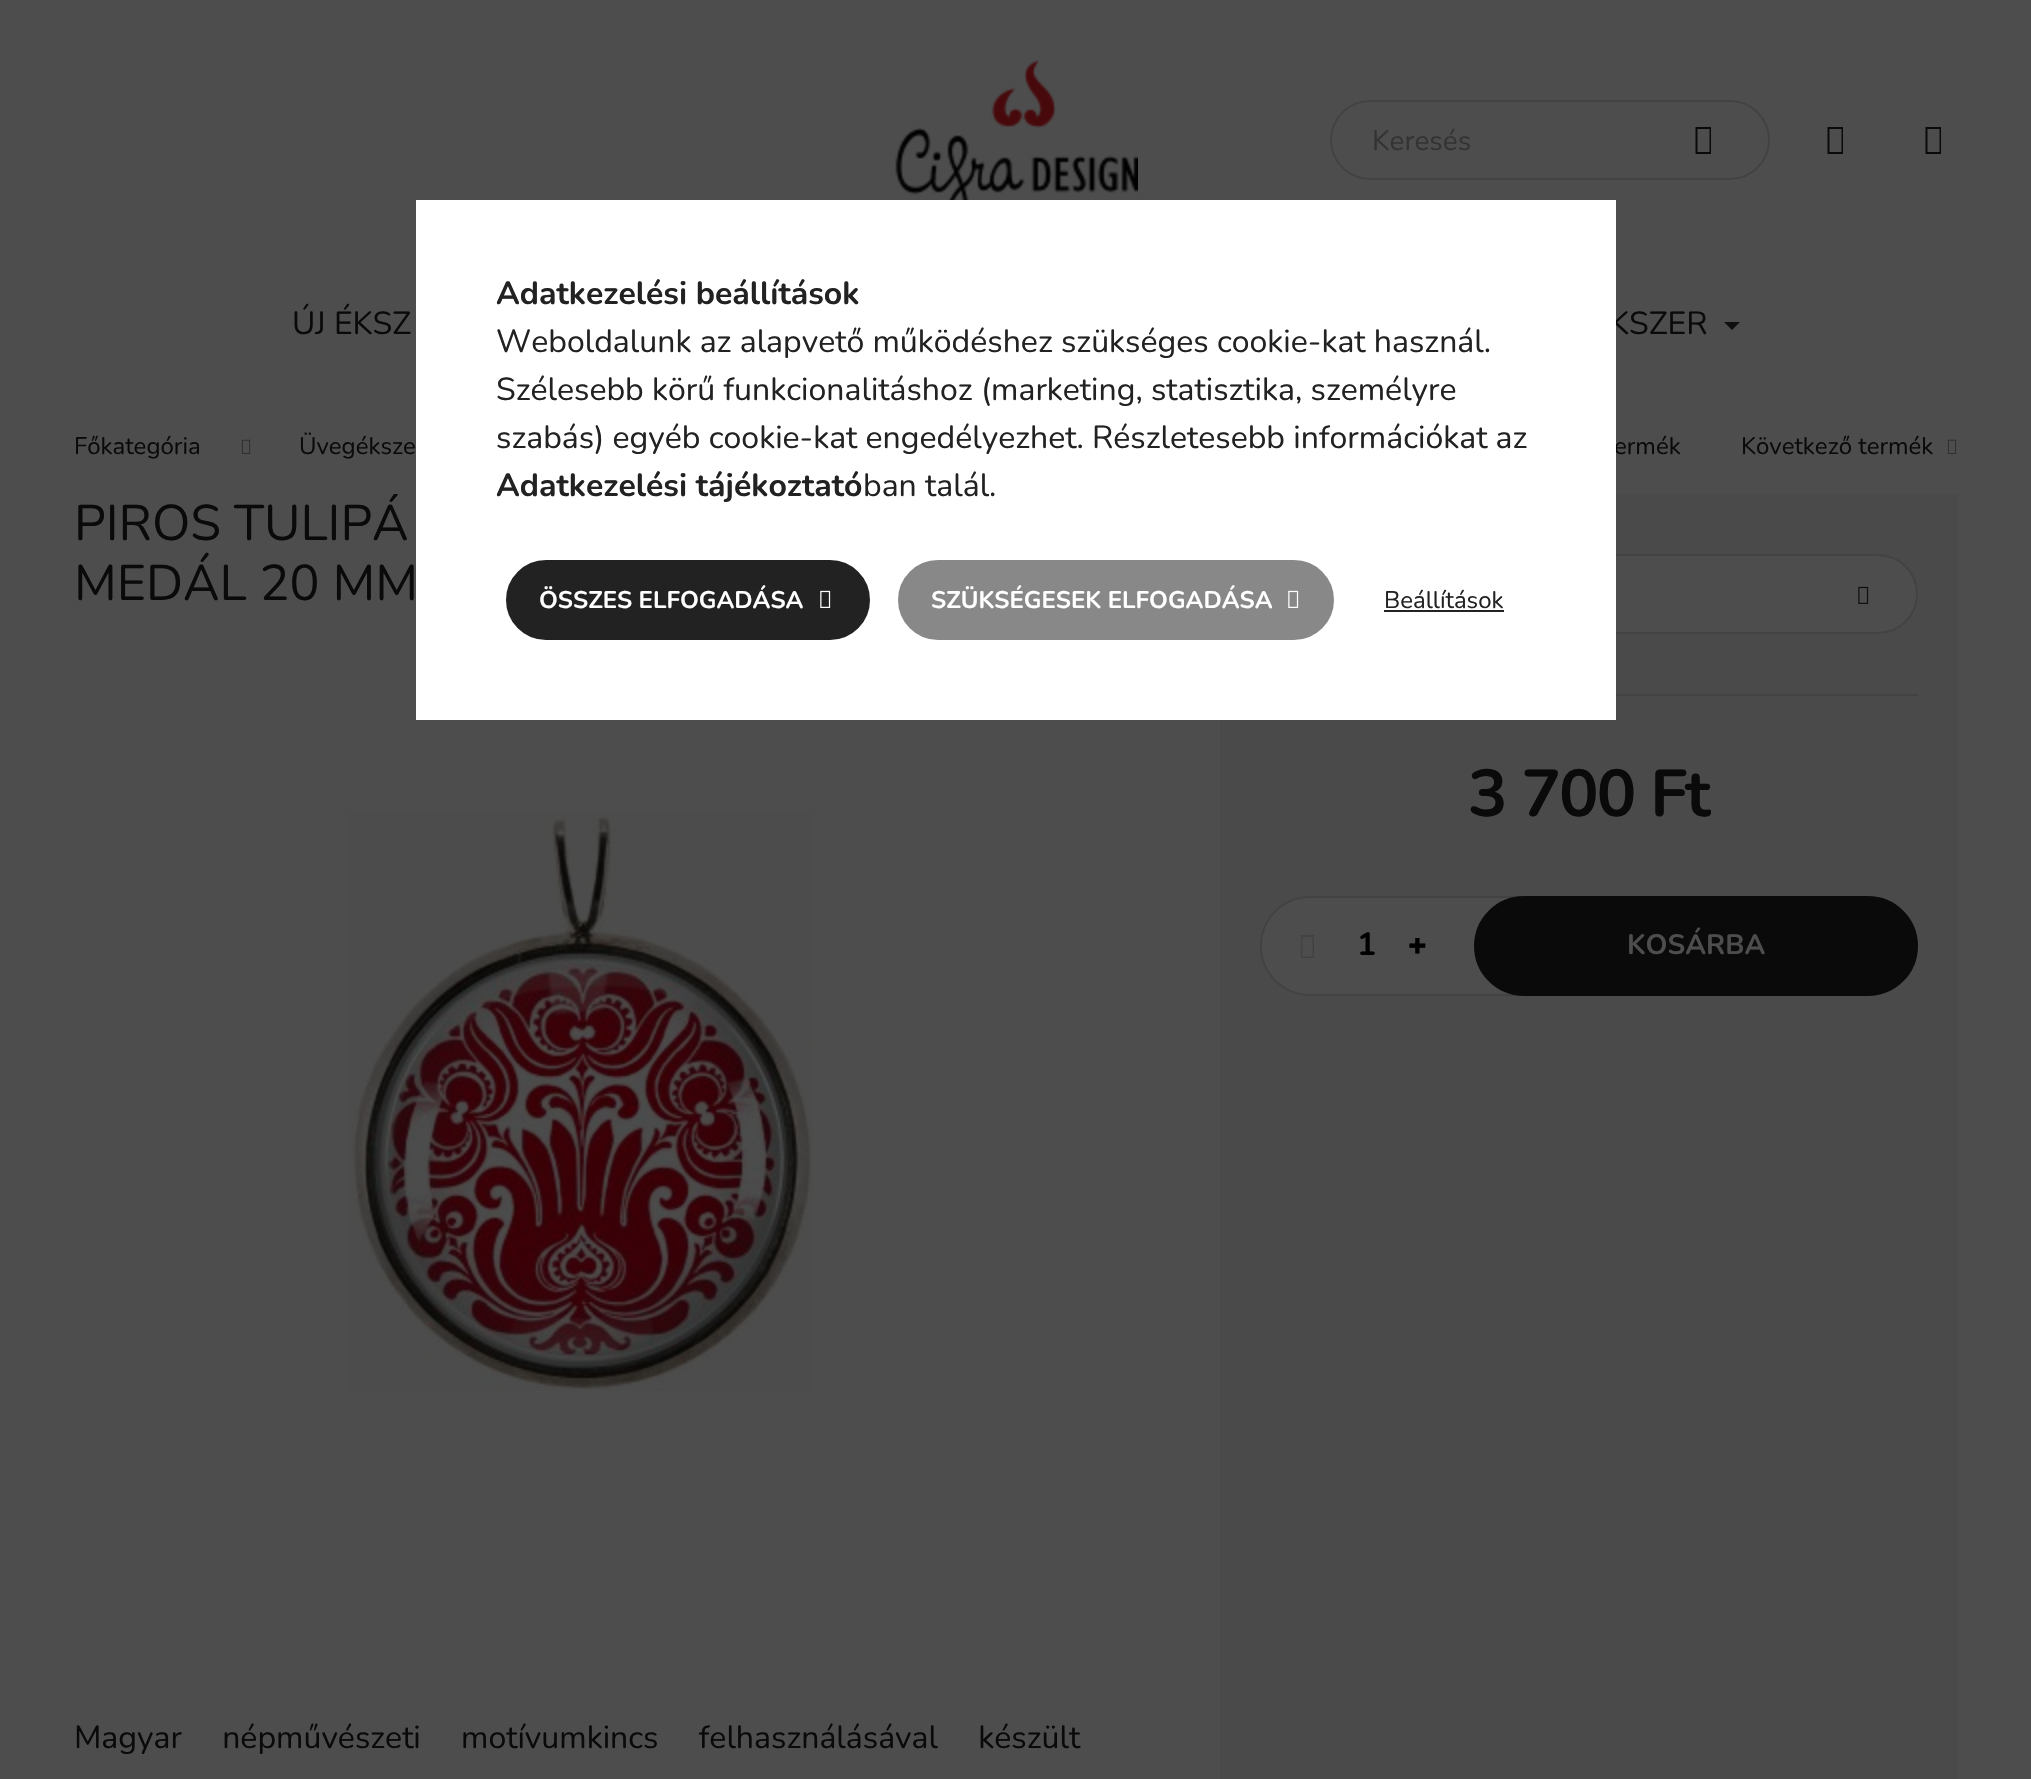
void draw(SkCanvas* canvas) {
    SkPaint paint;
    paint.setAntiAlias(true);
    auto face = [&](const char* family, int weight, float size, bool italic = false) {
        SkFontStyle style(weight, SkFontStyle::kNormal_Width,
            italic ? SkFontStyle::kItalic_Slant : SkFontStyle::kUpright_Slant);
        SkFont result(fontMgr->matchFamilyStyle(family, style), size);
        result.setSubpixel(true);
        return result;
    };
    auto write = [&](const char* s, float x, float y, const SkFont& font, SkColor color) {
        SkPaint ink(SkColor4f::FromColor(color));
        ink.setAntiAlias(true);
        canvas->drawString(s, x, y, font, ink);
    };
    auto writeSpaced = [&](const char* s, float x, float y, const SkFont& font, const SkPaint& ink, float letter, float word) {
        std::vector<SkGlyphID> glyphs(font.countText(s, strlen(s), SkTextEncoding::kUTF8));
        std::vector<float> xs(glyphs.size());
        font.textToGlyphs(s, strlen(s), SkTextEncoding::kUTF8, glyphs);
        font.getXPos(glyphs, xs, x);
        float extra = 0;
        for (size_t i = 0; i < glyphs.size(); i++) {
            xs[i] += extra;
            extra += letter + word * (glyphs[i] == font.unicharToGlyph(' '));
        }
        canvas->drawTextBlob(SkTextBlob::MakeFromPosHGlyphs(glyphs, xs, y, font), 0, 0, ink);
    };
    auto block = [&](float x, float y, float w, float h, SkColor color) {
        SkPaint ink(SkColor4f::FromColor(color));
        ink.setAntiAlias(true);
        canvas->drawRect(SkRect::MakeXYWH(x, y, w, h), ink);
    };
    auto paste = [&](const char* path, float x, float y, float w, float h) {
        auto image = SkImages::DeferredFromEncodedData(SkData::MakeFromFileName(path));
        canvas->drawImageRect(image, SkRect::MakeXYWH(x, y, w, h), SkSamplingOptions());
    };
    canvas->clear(SkColorSetRGB(77, 77, 77));
    paste("pic1.png", 895, 60, 243, 140);
    paint.setStyle(SkPaint::kStroke_Style);
    paint.setStrokeWidth(2);
    paint.setColor(SkColorSetRGB(66, 66, 66));
    canvas->drawRoundRect(SkRect::MakeXYWH(1331, 101, 438, 78), 39, 39, paint);
    auto kFont1 = face("Nunito", 400, 28);
    write("Keresés", 1372, 150, kFont1, SkColorSetRGB(51, 51, 51));
    paint.setStyle(SkPaint::kFill_Style);
    paint.setColor(SkColorSetRGB(10, 10, 10));
    canvas->drawPath(SkPathBuilder().moveTo(1695.5f, 154).lineTo(1695.5f, 127).lineTo(1711, 127).lineTo(1711, 154).close().moveTo(1697.5f, 152).lineTo(1709.5f, 152).lineTo(1709.5f, 129).lineTo(1697.5f, 129).close().detach(), paint);
    canvas->drawPath(SkPathBuilder().moveTo(1827.5f, 154).lineTo(1827.5f, 127).lineTo(1843, 127).lineTo(1843, 154).close().moveTo(1829.5f, 152).lineTo(1841.5f, 152).lineTo(1841.5f, 129).lineTo(1829.5f, 129).close().detach(), paint);
    canvas->drawPath(SkPathBuilder().moveTo(1925.5f, 154).lineTo(1925.5f, 127).lineTo(1941, 127).lineTo(1941, 154).close().moveTo(1927.5f, 152).lineTo(1939.5f, 152).lineTo(1939.5f, 129).lineTo(1927.5f, 129).close().detach(), paint);
    auto kFont2 = face("Nunito", 400, 32);
    write("ÚJ ÉKSZ", 292, 334, kFont2, SkColorSetRGB(10, 10, 10));
    write("KSZER", 1609, 334, kFont2, SkColorSetRGB(10, 10, 10));
    paint.setColor(SkColorSetRGB(15, 15, 15));
    canvas->drawPath(SkPathBuilder().moveTo(1724, 322).lineTo(1740, 322).lineTo(1732, 330).close().detach(), paint);
    auto kFont3 = face("Nunito", 400, 24);
    write("Főkategória", 74, 454, kFont3, SkColorSetRGB(10, 10, 10));
    paste("pic2.png", 241, 439, 10, 15);
    write("Üvegéksze", 299, 454, kFont3, SkColorSetRGB(10, 10, 10));
    write("ermék", 1614, 454, kFont3, SkColorSetRGB(10, 10, 10));
    write("Következő termék", 1741, 454, kFont3, SkColorSetRGB(10, 10, 10));
    paste("pic2.png", 1947, 439, 10, 15);
    canvas->save();
    canvas->clipRect(SkRect::MakeXYWH(74, 494, 1066, 120));
    auto kFont4 = face("Nunito", 400, 50);
    write("PIROS TULIPÁ", 74, 540, kFont4, SkColorSetRGB(10, 10, 10));
    canvas->restore();
    write("MEDÁL 20 MM", 74, 600, kFont4, SkColorSetRGB(10, 10, 10));
    paste("pic3.png", 348, 813, 465, 578);
    paint.setColor(SkColorSetRGB(10, 10, 10));
    writeSpaced("Magyar népművészeti motívumkincs felhasználásával készült", 74, 1748, kFont2, paint, 0, 32);
    block(1220, 494, 738, 1285, SkColorSetRGB(74, 74, 74));
    block(1616, 694, 302, 2, SkColorSetRGB(66, 66, 66));
    paint.setColor(SkColorSetRGB(77, 77, 77));
    canvas->drawRoundRect(SkRect::MakeXYWH(1261, 555, 656, 78), 39, 39, paint);
    paint.setStyle(SkPaint::kStroke_Style);
    paint.setColor(SkColorSetRGB(66, 66, 66));
    canvas->drawRoundRect(SkRect::MakeXYWH(1261, 555, 656, 78), 39, 39, paint);
    paste("pic4.png", 1858, 586, 11, 18);
    auto kFont5 = face("Nunito", 700, 66);
    paint.setStyle(SkPaint::kFill_Style);
    paint.setColor(SkColorSetRGB(10, 10, 10));
    writeSpaced("3 700 Ft", 1468, 816, kFont5, paint, -2, 0);
    paint.setColor(SkColorSetRGB(77, 77, 77));
    canvas->drawPath(SkPathBuilder().moveTo(1310, 897).lineTo(1533, 897).lineTo(1533, 995).lineTo(1310, 995).cubicTo(1283, 995, 1261, 973, 1261, 946).cubicTo(1261, 919, 1283, 897, 1310, 897).close().detach(), paint);
    paint.setStyle(SkPaint::kStroke_Style);
    paint.setColor(SkColorSetRGB(66, 66, 66));
    canvas->drawPath(SkPathBuilder().moveTo(1310, 897).lineTo(1533, 897).lineTo(1533, 995).lineTo(1310, 995).cubicTo(1283, 995, 1261, 973, 1261, 946).cubicTo(1261, 919, 1283, 897, 1310, 897).close().detach(), paint);
    paint.setStyle(SkPaint::kFill_Style);
    canvas->drawPath(SkPathBuilder().moveTo(1301, 958).lineTo(1301, 935).lineTo(1314, 935).lineTo(1314, 958).close().moveTo(1302.5f, 956.5f).lineTo(1312.5f, 956.5f).lineTo(1312.5f, 937).lineTo(1302.5f, 937).close().detach(), paint);
    auto kFont6 = face("Nunito", 700, 32);
    write("1", 1357, 955, kFont6, SK_ColorBLACK);
    auto kFont7 = face("Noto Sans", 900, 32);
    write("+", 1408, 957, kFont7, SK_ColorBLACK);
    paint.setColor(SkColorSetRGB(10, 10, 10));
    canvas->drawRoundRect(SkRect::MakeXYWH(1475, 897, 442, 98), 49, 49, paint);
    paint.setStyle(SkPaint::kStroke_Style);
    canvas->drawRoundRect(SkRect::MakeXYWH(1475, 897, 442, 98), 49, 49, paint);
    auto kFont8 = face("Nunito", 700, 28);
    write("KOSÁRBA", 1627, 954, kFont8, SkColorSetRGB(77, 77, 77));
    block(416, 200, 1200, 520, SK_ColorWHITE);
    write("Adatkezelési beállítások", 496, 304, kFont6, SkColorSetRGB(34, 34, 34));
    write("Weboldalunk az alapvető működéshez szükséges cookie-kat használ.", 496, 352, kFont2, SkColorSetRGB(34, 34, 34));
    write("Szélesebb körű funkcionalitáshoz (marketing, statisztika, személyre", 496, 400, kFont2, SkColorSetRGB(34, 34, 34));
    write("szabás) egyéb cookie-kat engedélyezhet. Részletesebb információkat az", 496, 448, kFont2, SkColorSetRGB(34, 34, 34));
    write("Adatkezelési tájékoztató", 496, 496, kFont6, SkColorSetRGB(34, 34, 34));
    write("ban talál.", 863, 496, kFont2, SkColorSetRGB(34, 34, 34));
    paint.setStyle(SkPaint::kFill_Style);
    paint.setColor(SkColorSetRGB(34, 34, 34));
    canvas->drawRoundRect(SkRect::MakeXYWH(507, 561, 362, 78), 39, 39, paint);
    paint.setStyle(SkPaint::kStroke_Style);
    canvas->drawRoundRect(SkRect::MakeXYWH(507, 561, 362, 78), 39, 39, paint);
    auto kFont9 = face("Nunito", 700, 24);
    write("ÖSSZES ELFOGADÁSA", 539, 608, kFont9, SK_ColorWHITE);
    paste("pic5.png", 820, 590, 11, 18);
    paint.setStyle(SkPaint::kFill_Style);
    paint.setColor(SkColorSetRGB(136, 136, 136));
    canvas->drawRoundRect(SkRect::MakeXYWH(899, 561, 434, 78), 39, 39, paint);
    paint.setStyle(SkPaint::kStroke_Style);
    canvas->drawRoundRect(SkRect::MakeXYWH(899, 561, 434, 78), 39, 39, paint);
    write("SZÜKSÉGESEK ELFOGADÁSA", 931, 608, kFont9, SK_ColorWHITE);
    paste("pic6.png", 1288, 590, 11, 18);
    write("Beállítások", 1384, 608, kFont3, SkColorSetRGB(34, 34, 34));
    block(1384, 610, 120, 2, SkColorSetRGB(34, 34, 34));
}
